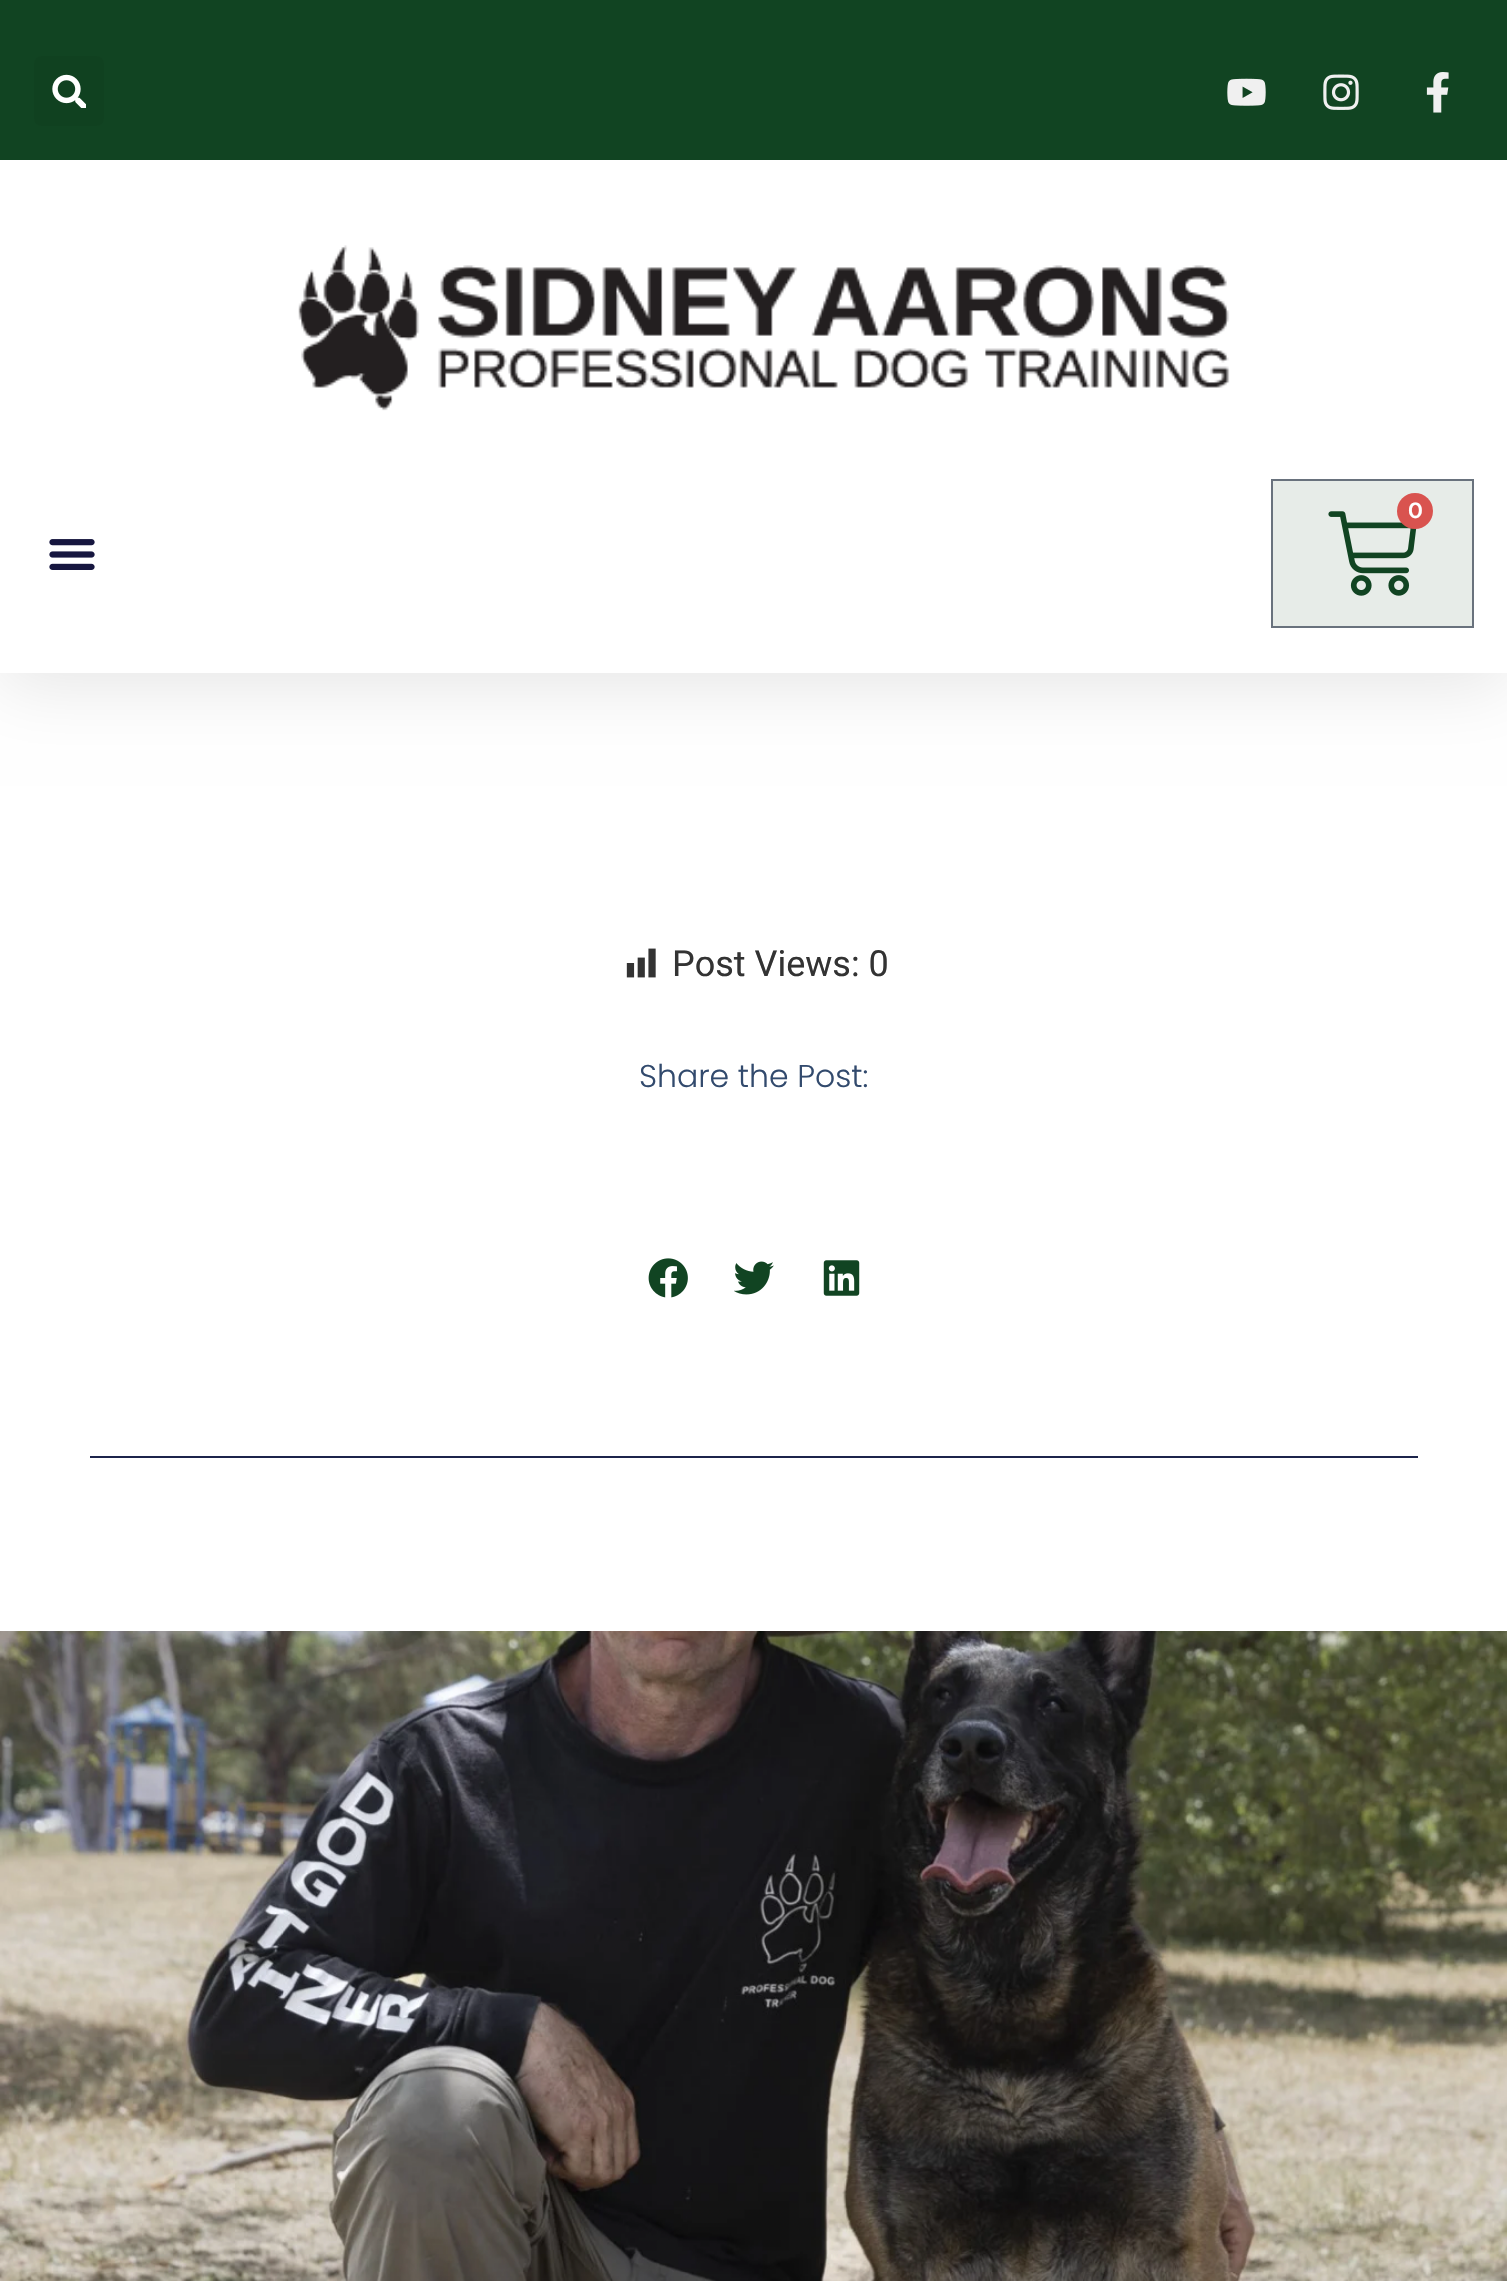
void draw(SkCanvas* canvas) {
    SkPaint paint;
    paint.setAntiAlias(true);
    auto face = [&](const char* family, int weight, float size, bool italic = false) {
        SkFontStyle style(weight, SkFontStyle::kNormal_Width,
            italic ? SkFontStyle::kItalic_Slant : SkFontStyle::kUpright_Slant);
        SkFont result(fontMgr->matchFamilyStyle(family, style), size);
        result.setSubpixel(true);
        return result;
    };
    auto write = [&](const char* s, float x, float y, const SkFont& font, SkColor color) {
        SkPaint ink(SkColor4f::FromColor(color));
        ink.setAntiAlias(true);
        canvas->drawString(s, x, y, font, ink);
    };
    auto block = [&](float x, float y, float w, float h, SkColor color) {
        SkPaint ink(SkColor4f::FromColor(color));
        ink.setAntiAlias(true);
        canvas->drawRect(SkRect::MakeXYWH(x, y, w, h), ink);
    };
    auto card = [&](float x, float y, float w, float h, float radius, SkColor color) {
        SkPaint ink(SkColor4f::FromColor(color));
        ink.setAntiAlias(true);
        canvas->drawRoundRect(SkRect::MakeXYWH(x, y, w, h), radius, radius, ink);
    };
    auto paste = [&](const char* path, float x, float y, float w, float h) {
        auto image = SkImages::DeferredFromEncodedData(SkData::MakeFromFileName(path));
        canvas->drawImageRect(image, SkRect::MakeXYWH(x, y, w, h), SkSamplingOptions());
    };
    canvas->clear(SK_ColorWHITE);
    paint.setColor(SkColorSetARGB(26, 0, 0, 0));
    paint.setMaskFilter(SkMaskFilter::MakeBlur(kNormal_SkBlurStyle, 34));
    canvas->drawRect(SkRect::MakeXYWH(0, 11, 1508, 673), paint);
    paint.setMaskFilter(nullptr);
    block(0, 0, 1507, 160, SkColorSetRGB(17, 68, 34));
    card(34, 56, 70, 70, 7, SkColorSetRGB(16, 65, 32));
    paste("pic1.png", 52, 74, 34, 34);
    paste("pic2.png", 1227, 78, 39, 28);
    paste("pic3.png", 1323, 74, 36, 36);
    paste("pic4.png", 1426, 72, 23, 41);
    block(0, 160, 1507, 513, SK_ColorWHITE);
    paste("pic5.png", 298, 245, 932, 166);
    paint.setColor(SkColorSetRGB(231, 236, 232));
    canvas->drawRect(SkRect::MakeXYWH(1272, 480, 201, 147), paint);
    paint.setStyle(SkPaint::kStroke_Style);
    paint.setStrokeWidth(2);
    paint.setColor(SkColorSetRGB(105, 114, 125));
    canvas->drawRect(SkRect::MakeXYWH(1272, 480, 201, 147), paint);
    paste("pic6.png", 1328, 511, 89, 85);
    paint.setStyle(SkPaint::kFill_Style);
    paint.setColor(SkColorSetRGB(217, 83, 79));
    canvas->drawCircle(1415, 511, 18, paint);
    auto kFont1 = face("Montserrat", 600, 22);
    write("0", 1408, 518, kFont1, SK_ColorWHITE);
    paste("pic7.png", 49, 539, 46, 31);
    paste("pic8.png", 626, 948, 30, 30);
    auto kFont2 = face("Roboto", 400, 36);
    write("Post Views: 0", 672, 976, kFont2, SkColorSetRGB(51, 51, 51));
    auto kFont3 = face("Poppins", 300, 31.5f);
    write("Share the Post:", 639, 1087, kFont3, SkColorSetRGB(50, 74, 109));
    paste("pic9.png", 648, 1258, 40, 40);
    paste("pic10.png", 734, 1261, 40, 34);
    paste("pic11.png", 823, 1260, 37, 36);
    block(90, 1456, 1328, 2, SkColorSetRGB(28, 36, 75));
    paste("pic12.png", 0, 1631, 1507, 650);
}
